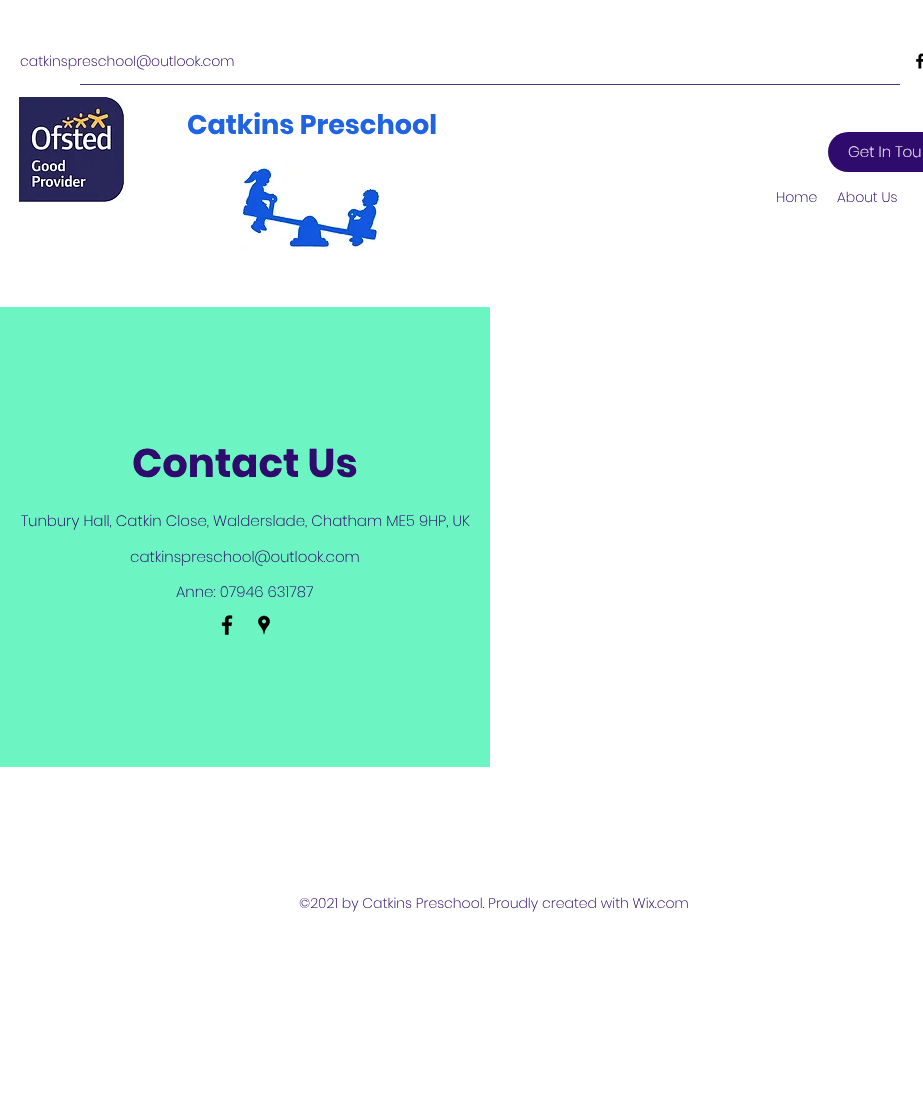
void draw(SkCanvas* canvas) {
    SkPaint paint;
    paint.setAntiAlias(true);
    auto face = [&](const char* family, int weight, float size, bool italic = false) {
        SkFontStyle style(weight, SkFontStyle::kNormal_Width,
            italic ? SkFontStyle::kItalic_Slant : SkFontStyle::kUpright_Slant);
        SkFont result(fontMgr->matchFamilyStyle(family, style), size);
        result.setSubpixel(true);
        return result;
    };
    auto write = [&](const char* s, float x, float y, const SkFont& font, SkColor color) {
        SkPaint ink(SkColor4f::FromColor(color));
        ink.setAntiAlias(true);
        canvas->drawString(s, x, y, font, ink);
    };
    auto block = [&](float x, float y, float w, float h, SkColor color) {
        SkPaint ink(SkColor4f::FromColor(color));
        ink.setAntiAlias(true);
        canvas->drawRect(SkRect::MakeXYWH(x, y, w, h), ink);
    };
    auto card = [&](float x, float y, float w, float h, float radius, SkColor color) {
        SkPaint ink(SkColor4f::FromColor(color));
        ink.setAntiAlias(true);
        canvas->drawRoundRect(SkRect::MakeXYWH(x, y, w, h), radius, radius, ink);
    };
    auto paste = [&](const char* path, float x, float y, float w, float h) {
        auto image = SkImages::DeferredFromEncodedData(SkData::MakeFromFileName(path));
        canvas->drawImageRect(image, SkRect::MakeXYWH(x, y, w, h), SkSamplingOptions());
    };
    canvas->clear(SK_ColorWHITE);
    auto kFont1 = face("Poppins", 200, 14);
    write("catkinspreschool@outlook.com", 20, 66, kFont1, SkColorSetRGB(46, 11, 108));
    paste("pic1.png", 916, 53, 7, 16);
    block(80, 84, 820, 1, SkColorSetRGB(77, 48, 130));
    paste("pic2.png", 19, 97, 105, 105);
    auto kFont2 = face("Poppins", 700, 27);
    write("Catkins Preschool", 187, 134, kFont2, SkColorSetRGB(32, 100, 226));
    card(828, 132, 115, 40, 20, SkColorSetRGB(46, 11, 108));
    auto kFont3 = face("Poppins", 200, 15);
    write("Get In Tou", 848, 157, kFont3, SK_ColorWHITE);
    paste("pic3.png", 240, 162, 144, 88);
    write("Home", 776, 202, kFont1, SkColorSetRGB(46, 11, 108));
    write("About Us", 837, 202, kFont1, SkColorSetRGB(46, 11, 108));
    block(0, 307, 490, 460, SkColorSetRGB(109, 244, 195));
    auto kFont4 = face("Poppins", 700, 40);
    write("Contact Us", 132, 477, kFont4, SkColorSetRGB(46, 11, 108));
    write("Tunbury Hall, Catkin Close, Walderslade, Chatham ME5 9HP, UK", 21, 526, kFont3, SkColorSetRGB(46, 11, 108));
    write("catkinspreschool@outlook.com", 130, 562, kFont3, SkColorSetRGB(46, 11, 108));
    write("Anne: 07946 631787", 176, 597, kFont3, SkColorSetRGB(46, 11, 108));
    paste("pic4.png", 221, 615, 12, 20);
    paste("pic5.png", 258, 615, 12, 20);
    write("©2021 by Catkins Preschool. Proudly created with Wix.com", 299, 908, kFont1, SkColorSetRGB(46, 11, 108));
}
